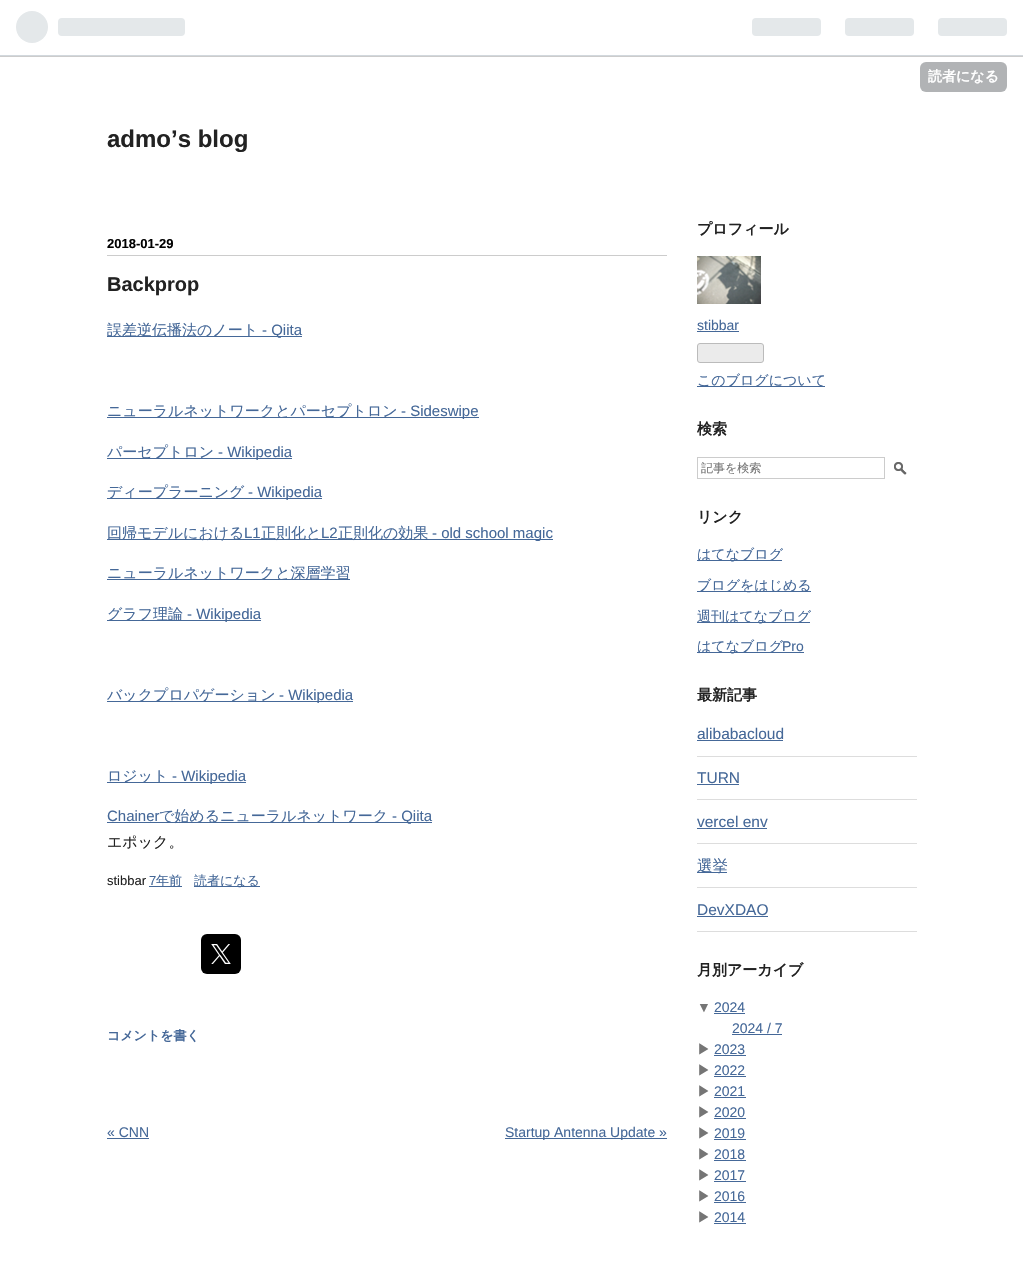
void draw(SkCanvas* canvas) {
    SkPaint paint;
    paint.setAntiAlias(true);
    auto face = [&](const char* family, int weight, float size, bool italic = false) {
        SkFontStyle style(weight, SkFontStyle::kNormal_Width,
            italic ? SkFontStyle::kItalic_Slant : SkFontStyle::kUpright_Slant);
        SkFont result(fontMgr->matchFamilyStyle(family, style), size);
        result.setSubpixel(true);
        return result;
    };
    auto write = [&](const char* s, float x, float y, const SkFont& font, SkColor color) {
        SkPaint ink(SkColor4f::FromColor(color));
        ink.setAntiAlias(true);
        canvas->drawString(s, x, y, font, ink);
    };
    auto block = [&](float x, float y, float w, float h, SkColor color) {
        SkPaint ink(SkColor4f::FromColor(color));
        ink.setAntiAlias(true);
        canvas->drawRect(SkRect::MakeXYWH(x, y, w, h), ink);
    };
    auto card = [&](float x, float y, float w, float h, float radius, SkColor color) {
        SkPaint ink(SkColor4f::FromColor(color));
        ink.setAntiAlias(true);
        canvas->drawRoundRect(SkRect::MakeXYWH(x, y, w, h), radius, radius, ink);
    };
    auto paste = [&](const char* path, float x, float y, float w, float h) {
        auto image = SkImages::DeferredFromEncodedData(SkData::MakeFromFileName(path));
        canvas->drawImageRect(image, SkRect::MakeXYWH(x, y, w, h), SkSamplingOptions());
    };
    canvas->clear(SK_ColorWHITE);
    block(0, 55, 1023, 1, SkColorSetRGB(210, 216, 221));
    block(0, 56, 1023, 1, SkColorSetRGB(204, 204, 204));
    paste("pic1.png", 16, 11, 169, 32);
    paste("pic2.png", 752, 18, 255, 18);
    card(920, 62, 87, 30, 6, SkColorSetRGB(177, 179, 181));
    auto kFont1 = face("WenQuanYi Zen Hei", 700, 14);
    write("読者になる", 928, 81, kFont1, SK_ColorWHITE);
    auto kFont2 = face("Liberation Sans", 700, 24);
    write("admo’s blog", 107, 147, kFont2, SkColorSetRGB(34, 34, 34));
    block(107, 255, 560, 1, SkColorSetRGB(204, 204, 204));
    auto kFont3 = face("Liberation Sans", 700, 13);
    write("2018-01-29", 107, 248, kFont3, SK_ColorBLACK);
    auto kFont4 = face("Liberation Sans", 700, 20);
    write("Backprop", 107, 291, kFont4, SkColorSetRGB(34, 34, 34));
    block(107, 336, 195, 1, SkColorSetRGB(69, 104, 152));
    auto kFont5 = face("WenQuanYi Zen Hei", 500, 15);
    write("誤差逆伝播法のノート", 107, 335, kFont5, SkColorSetRGB(69, 104, 152));
    auto kFont6 = face("Liberation Sans", 400, 15);
    write("- Qiita", 262, 335, kFont6, SkColorSetRGB(69, 104, 152));
    block(107, 417, 372, 1, SkColorSetRGB(69, 104, 152));
    write("ニューラルネットワークとパーセプトロン", 107, 416, kFont5, SkColorSetRGB(69, 104, 152));
    write("- Sideswipe", 401, 416, kFont6, SkColorSetRGB(69, 104, 152));
    block(107, 458, 185, 1, SkColorSetRGB(69, 104, 152));
    write("パーセプトロン", 107, 457, kFont5, SkColorSetRGB(69, 104, 152));
    write("- Wikipedia", 218, 457, kFont6, SkColorSetRGB(69, 104, 152));
    block(107, 498, 215, 1, SkColorSetRGB(69, 104, 152));
    write("ディープラーニング", 107, 497, kFont5, SkColorSetRGB(69, 104, 152));
    write("- Wikipedia", 248, 497, kFont6, SkColorSetRGB(69, 104, 152));
    block(107, 539, 446, 1, SkColorSetRGB(69, 104, 152));
    write("回帰モデルにおける", 107, 538, kFont5, SkColorSetRGB(69, 104, 152));
    write("L1", 244, 538, kFont6, SkColorSetRGB(69, 104, 152));
    write("正則化と", 261, 538, kFont5, SkColorSetRGB(69, 104, 152));
    write("L2", 321, 538, kFont6, SkColorSetRGB(69, 104, 152));
    write("正則化の効果", 338, 538, kFont5, SkColorSetRGB(69, 104, 152));
    write("- old school magic", 432, 538, kFont6, SkColorSetRGB(69, 104, 152));
    block(107, 579, 243, 1, SkColorSetRGB(69, 104, 152));
    write("ニューラルネットワークと深層学習", 107, 578, kFont5, SkColorSetRGB(69, 104, 152));
    block(107, 620, 154, 1, SkColorSetRGB(69, 104, 152));
    write("グラフ理論", 107, 619, kFont5, SkColorSetRGB(69, 104, 152));
    write("- Wikipedia", 187, 619, kFont6, SkColorSetRGB(69, 104, 152));
    block(107, 701, 246, 1, SkColorSetRGB(69, 104, 152));
    write("バックプロパゲーション", 107, 700, kFont5, SkColorSetRGB(69, 104, 152));
    write("- Wikipedia", 279, 700, kFont6, SkColorSetRGB(69, 104, 152));
    block(107, 782, 139, 1, SkColorSetRGB(69, 104, 152));
    write("ロジット", 107, 781, kFont5, SkColorSetRGB(69, 104, 152));
    write("- Wikipedia", 172, 781, kFont6, SkColorSetRGB(69, 104, 152));
    write("Chainer", 107, 821, kFont6, SkColorSetRGB(69, 104, 152));
    block(107, 822, 325, 1, SkColorSetRGB(69, 104, 152));
    write("で始めるニューラルネットワーク", 159, 821, kFont5, SkColorSetRGB(69, 104, 152));
    write("- Qiita", 392, 821, kFont6, SkColorSetRGB(69, 104, 152));
    write("エポック。", 107, 847, kFont5, SkColorSetRGB(34, 34, 34));
    auto kFont7 = face("Liberation Sans", 400, 13);
    write("stibbar", 107, 885, kFont7, SkColorSetRGB(34, 34, 34));
    write("7", 149, 885, kFont7, SkColorSetRGB(69, 104, 152));
    block(149, 886, 33, 1, SkColorSetRGB(69, 104, 152));
    auto kFont8 = face("WenQuanYi Zen Hei", 500, 13);
    write("年前", 156, 885, kFont8, SkColorSetRGB(69, 104, 152));
    block(194, 886, 66, 1, SkColorSetRGB(69, 104, 152));
    write("読者になる", 194, 885, kFont8, SkColorSetRGB(69, 104, 152));
    card(201, 934, 40, 40, 6, SK_ColorBLACK);
    paste("pic3.png", 211, 944, 20, 20);
    auto kFont9 = face("WenQuanYi Zen Hei", 700, 13);
    write("コメントを書く", 107, 1040, kFont9, SkColorSetRGB(69, 104, 152));
    auto kFont10 = face("Liberation Sans", 400, 14);
    write("« CNN", 107, 1137, kFont10, SkColorSetRGB(69, 104, 152));
    block(107, 1138, 42, 1, SkColorSetRGB(69, 104, 152));
    block(505, 1138, 162, 1, SkColorSetRGB(69, 104, 152));
    write("Startup Antenna Update »", 505, 1137, kFont10, SkColorSetRGB(69, 104, 152));
    auto kFont11 = face("WenQuanYi Zen Hei", 700, 15);
    write("プロフィール", 697, 234, kFont11, SkColorSetRGB(34, 34, 34));
    paste("pic4.png", 697, 256, 64, 48);
    write("stibbar", 697, 330, kFont10, SkColorSetRGB(69, 104, 152));
    block(697, 331, 42, 1, SkColorSetRGB(69, 104, 152));
    paint.setColor(SkColorSetRGB(235, 235, 235));
    canvas->drawRoundRect(SkRect::MakeXYWH(697.5f, 343.5f, 66, 19), 2.5f, 2.5f, paint);
    paint.setStyle(SkPaint::kStroke_Style);
    paint.setStrokeWidth(1);
    paint.setColor(SkColorSetRGB(187, 187, 187));
    canvas->drawRoundRect(SkRect::MakeXYWH(697.5f, 343.5f, 66, 19), 2.5f, 2.5f, paint);
    block(697, 386, 128, 1, SkColorSetRGB(69, 104, 152));
    auto kFont12 = face("WenQuanYi Zen Hei", 500, 14);
    write("このブログについて", 697, 385, kFont12, SkColorSetRGB(69, 104, 152));
    write("検索", 697, 434, kFont11, SkColorSetRGB(34, 34, 34));
    paint.setColor(SkColorSetRGB(204, 204, 204));
    canvas->drawRect(SkRect::MakeXYWH(697.5f, 457.5f, 187, 21), paint);
    canvas->save();
    canvas->clipRect(SkRect::MakeXYWH(701, 460, 180, 17));
    auto kFont13 = face("WenQuanYi Zen Hei", 500, 12);
    write("記事を検索", 701, 472, kFont13, SkColorSetRGB(117, 117, 117));
    canvas->restore();
    paste("pic5.png", 894, 462, 13, 13);
    write("リンク", 697, 522, kFont11, SkColorSetRGB(34, 34, 34));
    block(697, 560, 85, 1, SkColorSetRGB(69, 104, 152));
    write("はてなブログ", 697, 559, kFont12, SkColorSetRGB(69, 104, 152));
    block(697, 591, 114, 1, SkColorSetRGB(69, 104, 152));
    write("ブログをはじめる", 697, 590, kFont12, SkColorSetRGB(69, 104, 152));
    block(697, 622, 113, 1, SkColorSetRGB(69, 104, 152));
    write("週刊はてなブログ", 697, 621, kFont12, SkColorSetRGB(69, 104, 152));
    block(697, 652, 107, 1, SkColorSetRGB(69, 104, 152));
    write("はてなブログ", 697, 651, kFont12, SkColorSetRGB(69, 104, 152));
    write("Pro", 782, 651, kFont10, SkColorSetRGB(69, 104, 152));
    write("最新記事", 697, 700, kFont11, SkColorSetRGB(34, 34, 34));
    block(697, 756, 220, 1, SkColorSetRGB(221, 221, 221));
    auto kFont14 = face("Liberation Sans", 400, 15.5f);
    write("alibabacloud", 697, 739, kFont14, SkColorSetRGB(69, 104, 152));
    block(697, 740, 86, 1, SkColorSetRGB(69, 104, 152));
    block(697, 799, 220, 1, SkColorSetRGB(221, 221, 221));
    write("TURN", 697, 783, kFont14, SkColorSetRGB(69, 104, 152));
    block(697, 784, 42, 1, SkColorSetRGB(69, 104, 152));
    block(697, 843, 220, 1, SkColorSetRGB(221, 221, 221));
    write("vercel env", 697, 827, kFont14, SkColorSetRGB(69, 104, 152));
    block(697, 828, 70, 1, SkColorSetRGB(69, 104, 152));
    block(697, 887, 220, 1, SkColorSetRGB(221, 221, 221));
    block(697, 872, 30, 1, SkColorSetRGB(69, 104, 152));
    auto kFont15 = face("WenQuanYi Zen Hei", 500, 15.5f);
    write("選挙", 697, 871, kFont15, SkColorSetRGB(69, 104, 152));
    block(697, 931, 220, 1, SkColorSetRGB(221, 221, 221));
    write("DevXDAO", 697, 915, kFont14, SkColorSetRGB(69, 104, 152));
    block(697, 916, 71, 1, SkColorSetRGB(69, 104, 152));
    write("月別アーカイブ", 697, 975, kFont11, SkColorSetRGB(34, 34, 34));
    write("▼", 697, 1012, kFont10, SkColorSetRGB(117, 117, 117));
    write("2024", 714, 1012, kFont10, SkColorSetRGB(69, 104, 152));
    block(714, 1013, 31, 1, SkColorSetRGB(69, 104, 152));
    write("2024 / 7", 732, 1033, kFont10, SkColorSetRGB(69, 104, 152));
    block(732, 1034, 50, 1, SkColorSetRGB(69, 104, 152));
    write("▶", 697, 1054, kFont12, SkColorSetRGB(117, 117, 117));
    write("2023", 714, 1054, kFont10, SkColorSetRGB(69, 104, 152));
    block(714, 1055, 32, 1, SkColorSetRGB(69, 104, 152));
    write("▶", 697, 1075, kFont12, SkColorSetRGB(117, 117, 117));
    write("2022", 714, 1075, kFont10, SkColorSetRGB(69, 104, 152));
    block(714, 1076, 32, 1, SkColorSetRGB(69, 104, 152));
    write("▶", 697, 1096, kFont12, SkColorSetRGB(117, 117, 117));
    write("2021", 714, 1096, kFont10, SkColorSetRGB(69, 104, 152));
    block(714, 1097, 32, 1, SkColorSetRGB(69, 104, 152));
    write("▶", 697, 1117, kFont12, SkColorSetRGB(117, 117, 117));
    write("2020", 714, 1117, kFont10, SkColorSetRGB(69, 104, 152));
    block(714, 1118, 32, 1, SkColorSetRGB(69, 104, 152));
    write("▶", 697, 1138, kFont12, SkColorSetRGB(117, 117, 117));
    write("2019", 714, 1138, kFont10, SkColorSetRGB(69, 104, 152));
    block(714, 1139, 32, 1, SkColorSetRGB(69, 104, 152));
    write("▶", 697, 1159, kFont12, SkColorSetRGB(117, 117, 117));
    write("2018", 714, 1159, kFont10, SkColorSetRGB(69, 104, 152));
    block(714, 1160, 32, 1, SkColorSetRGB(69, 104, 152));
    write("▶", 697, 1180, kFont12, SkColorSetRGB(117, 117, 117));
    write("2017", 714, 1180, kFont10, SkColorSetRGB(69, 104, 152));
    block(714, 1181, 32, 1, SkColorSetRGB(69, 104, 152));
    write("▶", 697, 1201, kFont12, SkColorSetRGB(117, 117, 117));
    write("2016", 714, 1201, kFont10, SkColorSetRGB(69, 104, 152));
    block(714, 1202, 32, 1, SkColorSetRGB(69, 104, 152));
    write("▶", 697, 1222, kFont12, SkColorSetRGB(117, 117, 117));
    write("2014", 714, 1222, kFont10, SkColorSetRGB(69, 104, 152));
    block(714, 1223, 32, 1, SkColorSetRGB(69, 104, 152));
}
